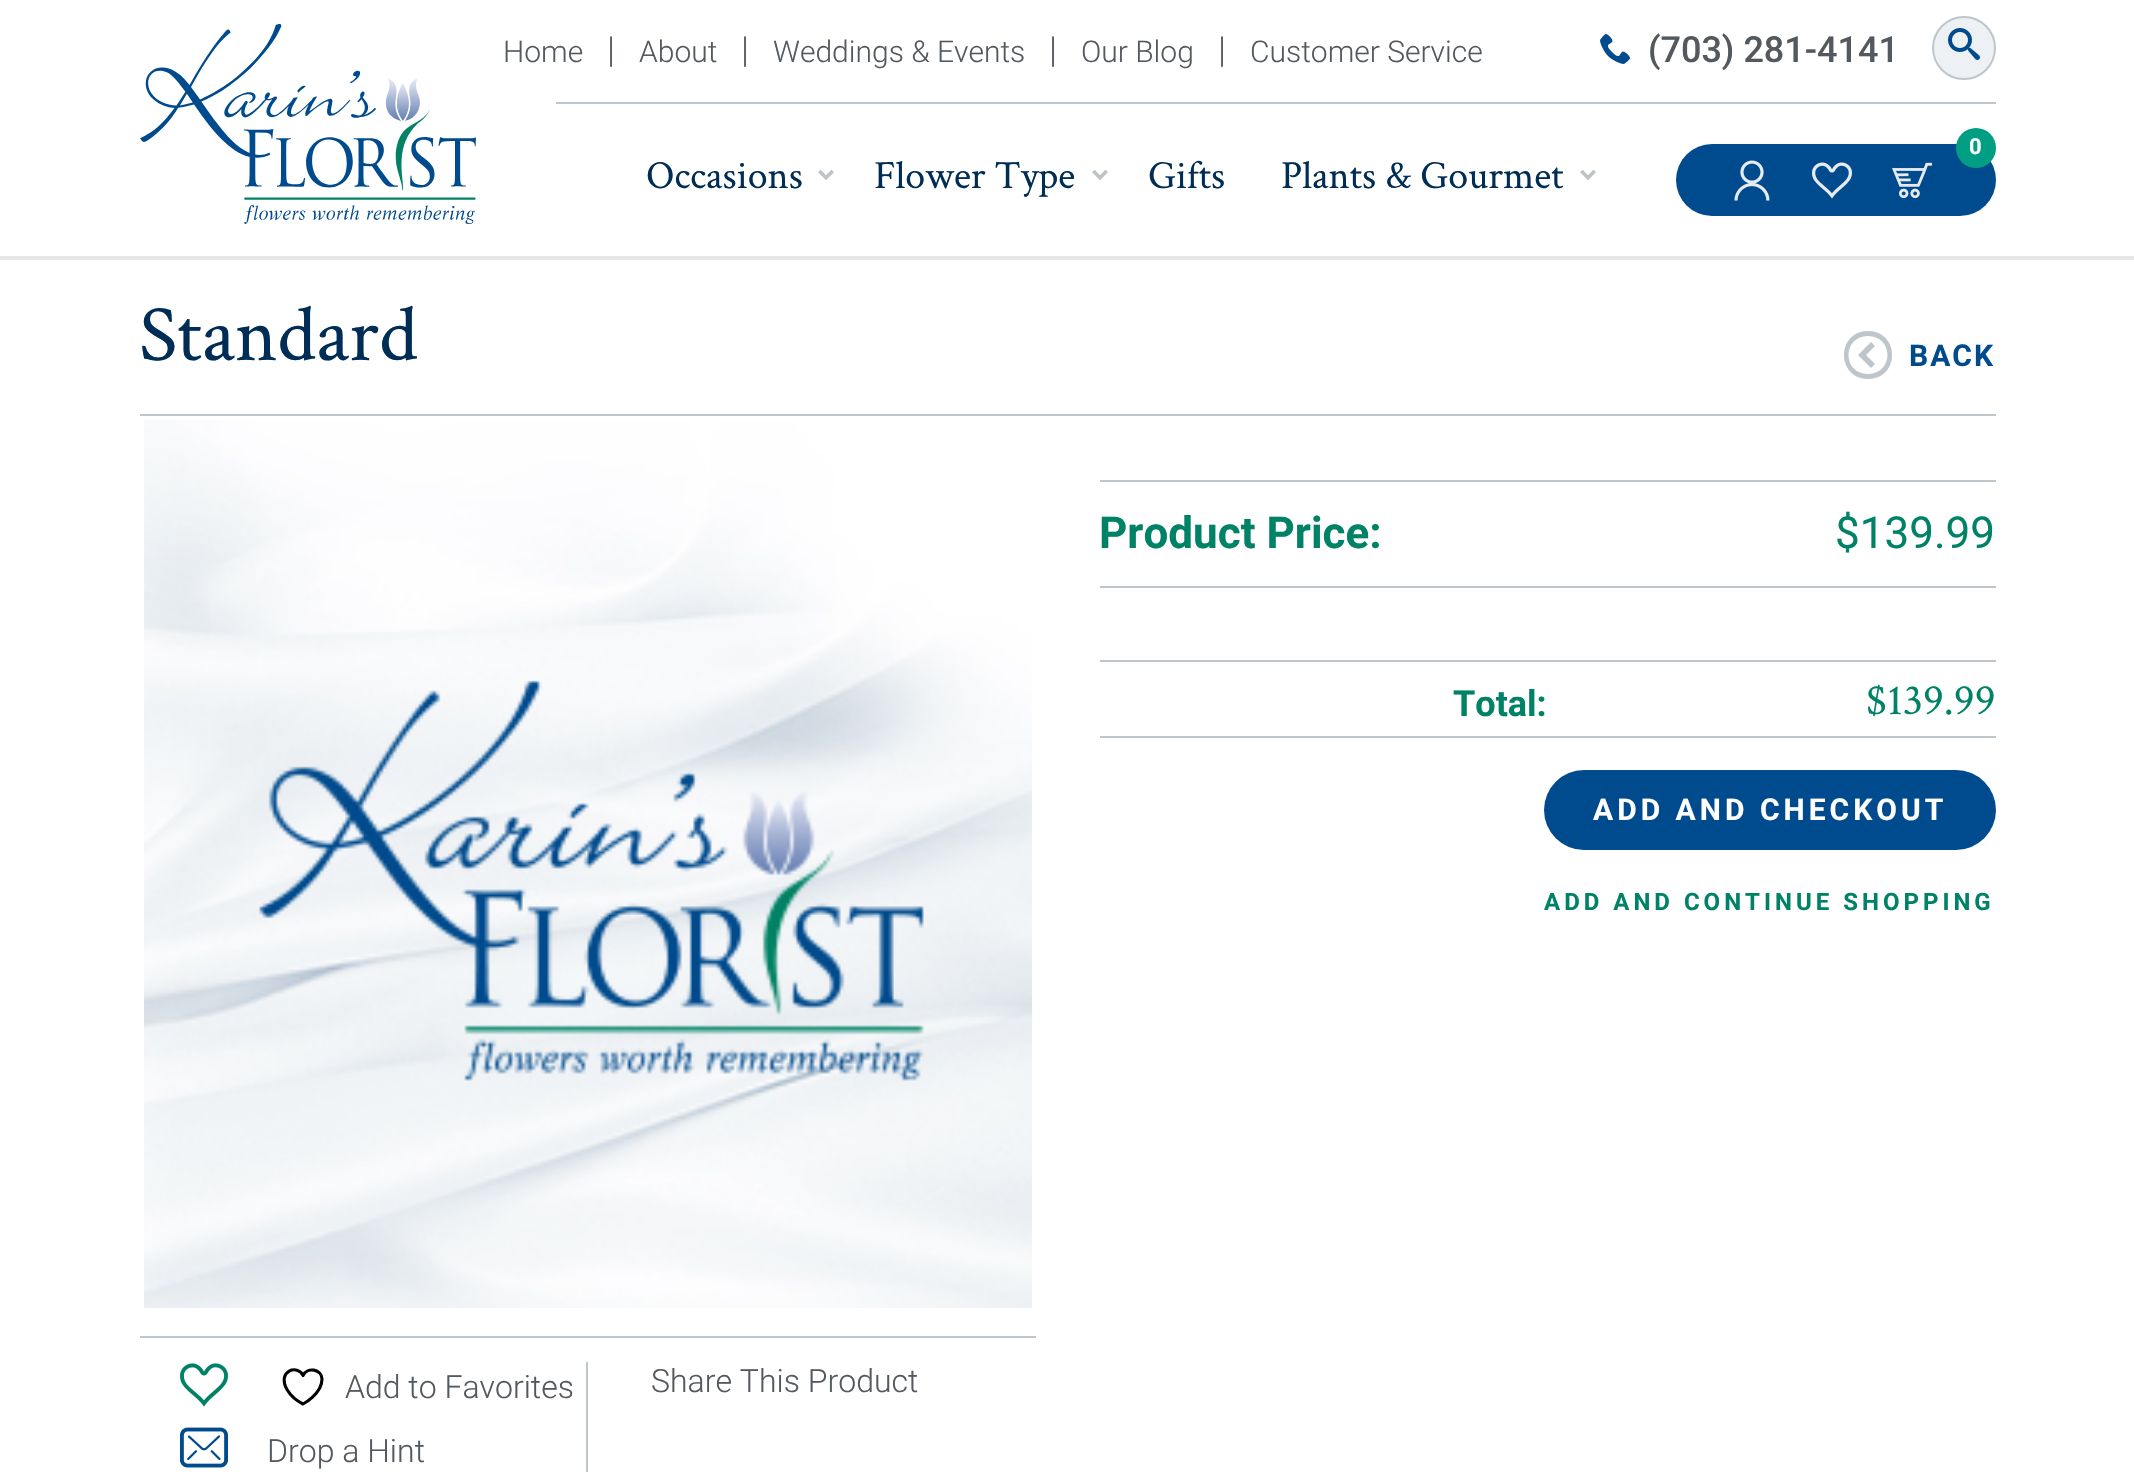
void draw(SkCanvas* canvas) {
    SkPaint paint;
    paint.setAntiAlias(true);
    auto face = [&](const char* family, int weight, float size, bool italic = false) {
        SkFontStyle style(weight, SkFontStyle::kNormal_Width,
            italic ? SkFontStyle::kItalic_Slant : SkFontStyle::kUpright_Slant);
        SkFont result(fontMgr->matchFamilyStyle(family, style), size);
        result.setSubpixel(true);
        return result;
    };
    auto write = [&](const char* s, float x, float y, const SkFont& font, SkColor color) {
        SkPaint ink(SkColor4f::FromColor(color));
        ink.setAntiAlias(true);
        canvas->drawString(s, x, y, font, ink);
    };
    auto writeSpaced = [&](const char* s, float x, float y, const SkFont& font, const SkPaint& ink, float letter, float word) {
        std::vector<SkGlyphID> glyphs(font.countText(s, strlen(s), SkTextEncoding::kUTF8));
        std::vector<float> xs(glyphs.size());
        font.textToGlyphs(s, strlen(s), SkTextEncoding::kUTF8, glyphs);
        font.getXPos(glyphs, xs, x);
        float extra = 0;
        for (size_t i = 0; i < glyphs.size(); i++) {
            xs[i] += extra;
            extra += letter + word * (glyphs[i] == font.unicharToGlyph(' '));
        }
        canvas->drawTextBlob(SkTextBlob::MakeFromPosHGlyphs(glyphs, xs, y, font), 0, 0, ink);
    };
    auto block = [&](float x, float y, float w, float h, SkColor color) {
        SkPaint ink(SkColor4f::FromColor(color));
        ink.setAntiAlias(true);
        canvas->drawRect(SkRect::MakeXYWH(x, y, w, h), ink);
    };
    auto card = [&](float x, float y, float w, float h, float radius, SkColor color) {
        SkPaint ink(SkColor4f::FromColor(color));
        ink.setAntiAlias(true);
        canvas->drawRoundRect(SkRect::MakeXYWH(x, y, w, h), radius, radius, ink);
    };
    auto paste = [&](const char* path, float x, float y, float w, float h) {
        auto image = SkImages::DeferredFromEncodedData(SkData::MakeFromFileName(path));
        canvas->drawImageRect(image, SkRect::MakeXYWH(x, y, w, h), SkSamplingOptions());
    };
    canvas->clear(SK_ColorWHITE);
    block(0, 256, 2134, 4, SkColorSetRGB(230, 230, 230));
    block(556, 102, 1440, 2, SkColorSetRGB(190, 197, 203));
    auto kFont1 = face("Roboto", 300, 30);
    write("Home", 503, 62, kFont1, SkColorSetRGB(83, 89, 94));
    auto kFont2 = face("Roboto", 300, 36);
    write("|", 607, 62, kFont2, SkColorSetRGB(83, 89, 94));
    write("About", 639, 62, kFont1, SkColorSetRGB(83, 89, 94));
    write("|", 741, 62, kFont2, SkColorSetRGB(83, 89, 94));
    write("Weddings & Events", 773, 62, kFont1, SkColorSetRGB(83, 89, 94));
    write("|", 1049, 62, kFont2, SkColorSetRGB(83, 89, 94));
    write("Our Blog", 1081, 62, kFont1, SkColorSetRGB(83, 89, 94));
    write("|", 1218, 62, kFont2, SkColorSetRGB(83, 89, 94));
    write("Customer Service", 1250, 62, kFont1, SkColorSetRGB(83, 89, 94));
    paste("pic1.png", 1600, 34, 30, 30);
    auto kFont3 = face("Roboto", 500, 36);
    write("(703) 281-4141", 1648, 62, kFont3, SkColorSetRGB(83, 89, 94));
    paint.setColor(SkColorSetRGB(237, 241, 244));
    canvas->drawCircle(1964, 48, 31, paint);
    paint.setStyle(SkPaint::kStroke_Style);
    paint.setStrokeWidth(2);
    paint.setColor(SkColorSetRGB(190, 197, 203));
    canvas->drawCircle(1964, 48, 31, paint);
    paste("pic2.png", 1948, 28, 32, 32);
    auto kFont4 = face("Crimson Text", 400, 40);
    write("Occasions", 646, 188, kFont4, SkColorSetRGB(0, 45, 86));
    paste("pic3.png", 818, 169, 16, 11);
    write("Flower Type", 874, 188, kFont4, SkColorSetRGB(0, 45, 86));
    paste("pic3.png", 1092, 169, 16, 11);
    write("Gifts", 1148, 188, kFont4, SkColorSetRGB(0, 45, 86));
    write("Plants & Gourmet", 1281, 188, kFont4, SkColorSetRGB(0, 45, 86));
    paste("pic3.png", 1580, 169, 16, 11);
    paste("pic4.png", 140, 24, 336, 200);
    card(1676, 144, 320, 72, 36, SkColorSetRGB(0, 75, 142));
    paint.setStyle(SkPaint::kFill_Style);
    paint.setColor(SkColorSetRGB(0, 159, 131));
    canvas->drawCircle(1976, 148, 20, paint);
    auto kFont5 = face("Roboto", 700, 22);
    write("0", 1969, 154, kFont5, SK_ColorWHITE);
    paste("pic5.png", 1892, 162, 40, 37);
    paste("pic6.png", 1734, 160, 36, 41);
    paste("pic7.png", 1812, 162, 40, 37);
    block(140, 414, 1856, 2, SkColorSetRGB(190, 197, 203));
    auto kFont6 = face("Crimson Text", 400, 80);
    write("Standard", 139, 360, kFont6, SkColorSetRGB(0, 45, 86));
    paint.setColor(SkColorSetRGB(190, 197, 203));
    canvas->drawPath(SkPathBuilder().moveTo(1868, 379).cubicTo(1900, 379, 1900, 331, 1868, 331).cubicTo(1836, 331, 1836, 379, 1868, 379).close().moveTo(1868, 336).cubicTo(1894, 336, 1894, 374, 1868, 374).cubicTo(1842, 374, 1842, 336, 1868, 336).close().moveTo(1875, 346).lineTo(1871, 342).lineTo(1858, 355).lineTo(1871, 368).lineTo(1875, 364).lineTo(1866, 355).close().detach(), paint);
    auto kFont7 = face("Roboto", 700, 30);
    paint.setColor(SkColorSetRGB(0, 75, 142));
    writeSpaced("BACK", 1909, 366, kFont7, paint, 2, 0);
    block(1100, 480, 896, 2, SkColorSetRGB(190, 197, 203));
    block(1100, 586, 896, 2, SkColorSetRGB(190, 197, 203));
    auto kFont8 = face("Roboto", 700, 44);
    write("Product Price:", 1099, 548, kFont8, SkColorSetRGB(0, 130, 102));
    auto kFont9 = face("Roboto", 400, 44);
    write("$139.99", 1835, 548, kFont9, SkColorSetRGB(0, 130, 102));
    block(1100, 660, 896, 2, SkColorSetRGB(190, 197, 203));
    block(1100, 736, 896, 2, SkColorSetRGB(190, 197, 203));
    auto kFont10 = face("Roboto", 700, 36);
    write("Total:", 1453, 716, kFont10, SkColorSetRGB(0, 130, 102));
    auto kFont11 = face("Crimson Text", 400, 44);
    write("$139.99", 1866, 714, kFont11, SkColorSetRGB(0, 130, 102));
    card(1544, 770, 452, 80, 40, SkColorSetRGB(0, 75, 142));
    paint.setColor(SK_ColorWHITE);
    writeSpaced("ADD AND CHECKOUT", 1593, 820, kFont7, paint, 4, 0);
    auto kFont12 = face("Roboto", 700, 24);
    paint.setColor(SkColorSetRGB(0, 130, 102));
    writeSpaced("ADD AND CONTINUE SHOPPING", 1544, 910, kFont12, paint, 4, 0);
    paste("pic8.png", 144, 420, 888, 888);
    block(140, 1336, 896, 2, SkColorSetRGB(190, 197, 203));
    block(586, 1362, 2, 110, SkColorSetRGB(190, 197, 203));
    paste("pic9.png", 180, 1363, 48, 44);
    paint.setStyle(SkPaint::kStroke_Style);
    paint.setStrokeWidth(3.1f);
    paint.setStrokeCap(SkPaint::kRound_Cap);
    paint.setStrokeJoin(SkPaint::kRound_Join);
    paint.setColor(SK_ColorBLACK);
    canvas->drawPath(SkPathBuilder().moveTo(322, 1379).cubicTo(322, 1369, 307, 1366.5f, 303, 1375.5f).cubicTo(298, 1364, 276.5f, 1370.5f, 287, 1389.5f).cubicTo(290.5f, 1395.5f, 297, 1401, 303, 1404).cubicTo(303, 1404, 322, 1394, 322, 1379).close().detach(), paint);
    auto kFont13 = face("Roboto", 300, 32);
    write("Add to Favorites", 345, 1398, kFont13, SkColorSetRGB(83, 89, 94));
    paste("pic10.png", 180, 1427, 48, 41);
    write("Drop a Hint", 267, 1462, kFont13, SkColorSetRGB(83, 89, 94));
    write("Share This Product", 651, 1392, kFont13, SkColorSetRGB(83, 89, 94));
}
